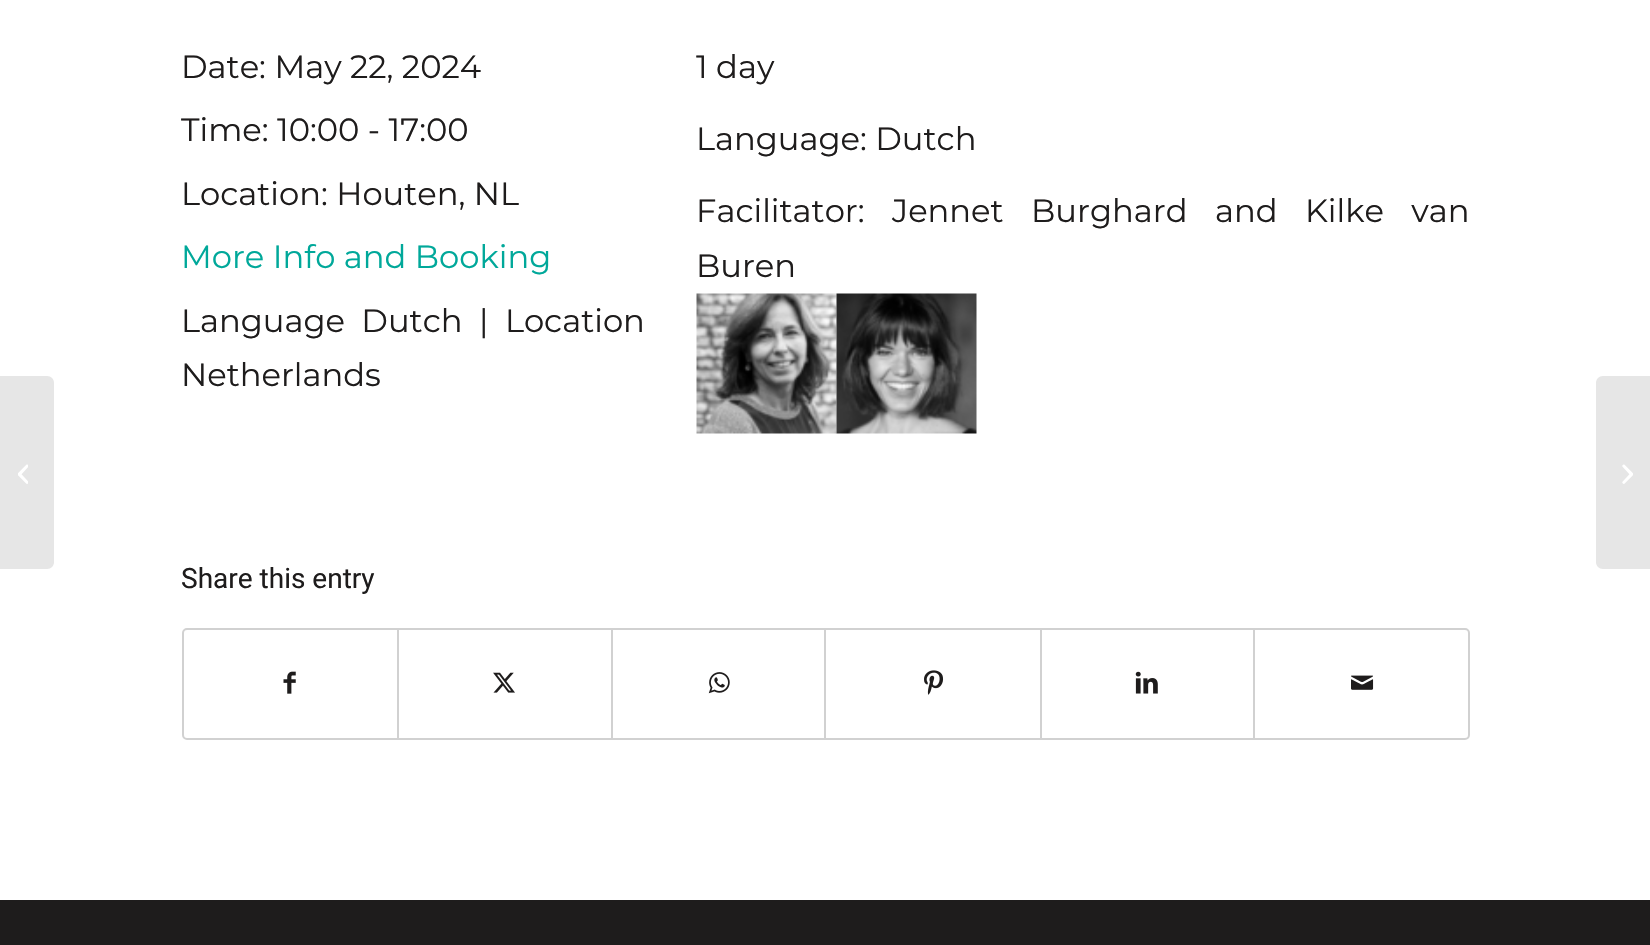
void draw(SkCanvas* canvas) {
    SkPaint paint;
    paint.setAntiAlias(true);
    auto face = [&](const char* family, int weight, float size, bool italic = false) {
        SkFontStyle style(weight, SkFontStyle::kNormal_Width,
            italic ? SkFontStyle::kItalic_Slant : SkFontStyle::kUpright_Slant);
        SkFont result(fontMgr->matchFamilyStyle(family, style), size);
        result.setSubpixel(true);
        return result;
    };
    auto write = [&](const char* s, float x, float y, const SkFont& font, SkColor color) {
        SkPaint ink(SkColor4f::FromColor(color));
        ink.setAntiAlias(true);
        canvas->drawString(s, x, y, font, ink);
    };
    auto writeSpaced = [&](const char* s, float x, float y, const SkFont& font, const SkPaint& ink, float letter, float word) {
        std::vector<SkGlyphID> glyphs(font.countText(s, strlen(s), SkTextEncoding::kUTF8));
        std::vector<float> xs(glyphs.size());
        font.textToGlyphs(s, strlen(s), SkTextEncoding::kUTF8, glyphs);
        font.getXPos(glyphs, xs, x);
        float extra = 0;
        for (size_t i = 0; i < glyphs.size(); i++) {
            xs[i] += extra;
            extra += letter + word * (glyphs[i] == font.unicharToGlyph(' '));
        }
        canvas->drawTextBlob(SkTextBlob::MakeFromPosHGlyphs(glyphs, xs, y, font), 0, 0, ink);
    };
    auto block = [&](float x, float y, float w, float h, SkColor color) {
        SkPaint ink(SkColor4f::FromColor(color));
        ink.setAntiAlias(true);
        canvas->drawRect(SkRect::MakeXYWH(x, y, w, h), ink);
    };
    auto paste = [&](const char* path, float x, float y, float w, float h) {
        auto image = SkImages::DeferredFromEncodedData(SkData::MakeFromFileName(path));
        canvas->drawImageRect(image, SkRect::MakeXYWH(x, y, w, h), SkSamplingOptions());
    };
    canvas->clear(SkColorSetRGB(30, 28, 28));
    block(0, 0, 1650, 900, SK_ColorWHITE);
    paint.setColor(SkColorSetRGB(230, 230, 230));
    canvas->drawPath(SkPathBuilder().moveTo(0, 376).lineTo(47, 376).cubicTo(51, 376, 54, 379, 54, 383).lineTo(54, 562).cubicTo(54, 566, 51, 569, 47, 569).lineTo(0, 569).close().detach(), paint);
    paste("pic1.png", 18, 464, 10, 20);
    auto kFont1 = face("Montserrat", 100, 32.2f);
    write("Date: May 22, 2024", 181, 78, kFont1, SkColorSetRGB(30, 28, 28));
    write("Time: 10:00 - 17:00", 181, 141, kFont1, SkColorSetRGB(30, 28, 28));
    write("Location: Houten, NL", 181, 205, kFont1, SkColorSetRGB(30, 28, 28));
    write("More Info and Booking", 181, 268, kFont1, SkColorSetRGB(0, 168, 154));
    paint.setColor(SkColorSetRGB(30, 28, 28));
    writeSpaced("Language Dutch | Location", 181, 332, kFont1, paint, 0, 8);
    write("Netherlands", 181, 386, kFont1, SkColorSetRGB(30, 28, 28));
    write("1 day", 696, 78, kFont1, SkColorSetRGB(30, 28, 28));
    write("Language: Dutch", 696, 150, kFont1, SkColorSetRGB(30, 28, 28));
    writeSpaced("Facilitator: Jennet Burghard and Kilke van", 696, 222, kFont1, paint, 0, 19);
    write("Buren", 696, 277, kFont1, SkColorSetRGB(30, 28, 28));
    paste("pic2.png", 696, 293, 141, 141);
    paste("pic3.png", 836, 293, 141, 141);
    auto kFont2 = face("Roboto", 400, 28);
    write("Share this entry", 181, 588, kFont2, SkColorSetRGB(30, 28, 28));
    paint.setStyle(SkPaint::kStroke_Style);
    paint.setStrokeWidth(2);
    paint.setColor(SkColorSetRGB(209, 209, 209));
    canvas->drawRoundRect(SkRect::MakeXYWH(183, 629, 1286, 110), 4, 4, paint);
    paste("pic4.png", 283, 671, 13, 23);
    block(397, 630, 2, 109, SkColorSetRGB(209, 209, 209));
    paste("pic5.png", 493, 672, 22, 21);
    block(611, 630, 2, 109, SkColorSetRGB(209, 209, 209));
    paste("pic6.png", 708, 672, 22, 22);
    block(824, 630, 2, 109, SkColorSetRGB(209, 209, 209));
    paste("pic7.png", 924, 670, 20, 25);
    block(1040, 630, 2, 109, SkColorSetRGB(209, 209, 209));
    paste("pic8.png", 1135, 671, 23, 23);
    block(1253, 630, 2, 109, SkColorSetRGB(209, 209, 209));
    paste("pic9.png", 1351, 675, 23, 15);
    paint.setStyle(SkPaint::kFill_Style);
    paint.setColor(SkColorSetRGB(230, 230, 230));
    canvas->drawPath(SkPathBuilder().moveTo(1603, 376).lineTo(1650, 376).lineTo(1650, 569).lineTo(1603, 569).cubicTo(1599, 569, 1596, 566, 1596, 562).lineTo(1596, 383).cubicTo(1596, 379, 1599, 376, 1603, 376).close().detach(), paint);
    paste("pic10.png", 1622, 464, 11, 20);
}
